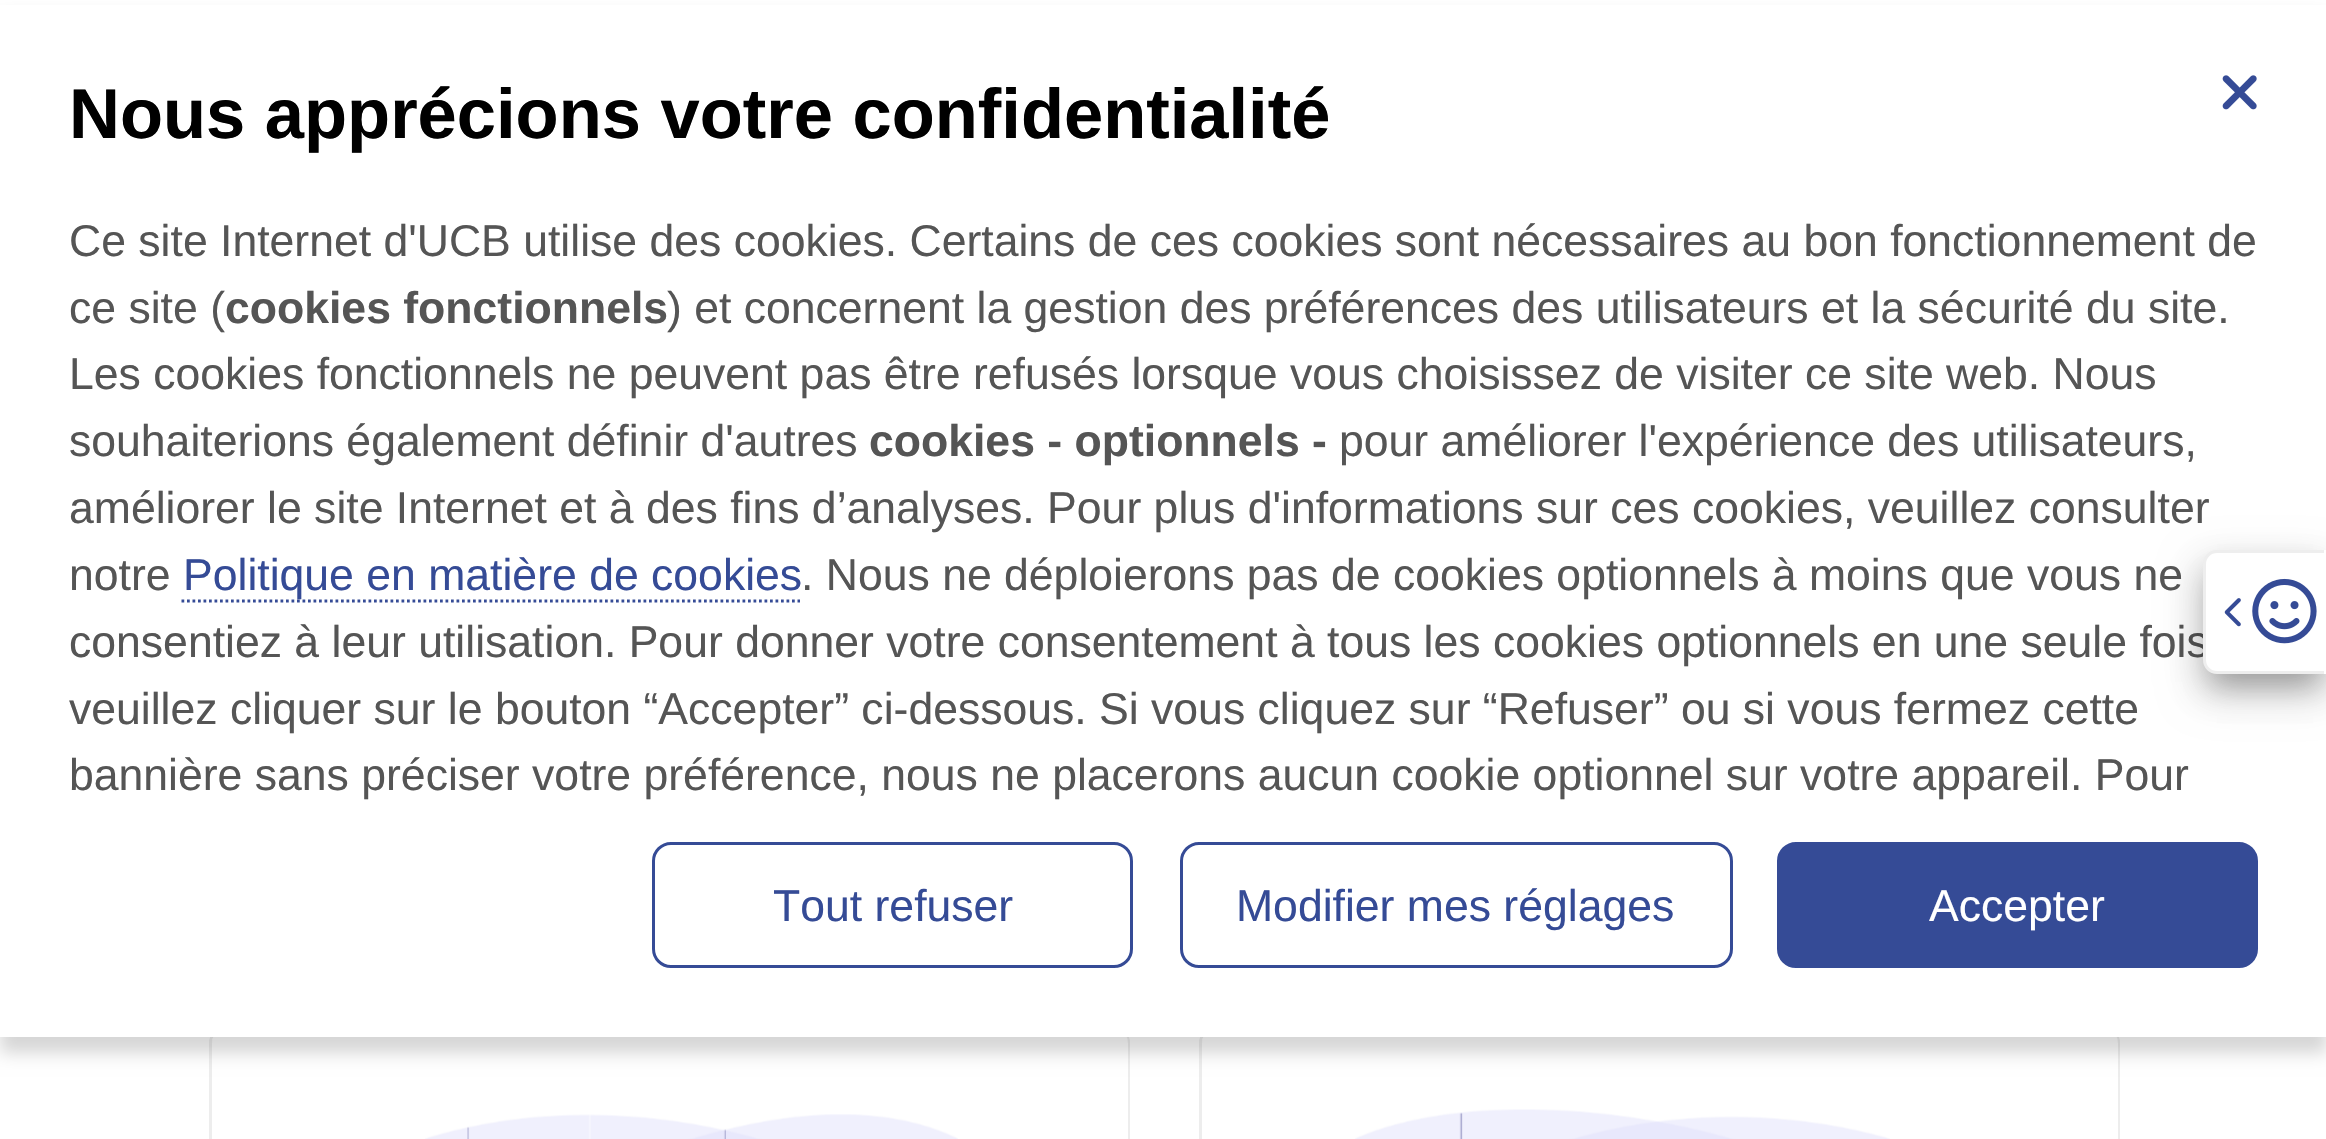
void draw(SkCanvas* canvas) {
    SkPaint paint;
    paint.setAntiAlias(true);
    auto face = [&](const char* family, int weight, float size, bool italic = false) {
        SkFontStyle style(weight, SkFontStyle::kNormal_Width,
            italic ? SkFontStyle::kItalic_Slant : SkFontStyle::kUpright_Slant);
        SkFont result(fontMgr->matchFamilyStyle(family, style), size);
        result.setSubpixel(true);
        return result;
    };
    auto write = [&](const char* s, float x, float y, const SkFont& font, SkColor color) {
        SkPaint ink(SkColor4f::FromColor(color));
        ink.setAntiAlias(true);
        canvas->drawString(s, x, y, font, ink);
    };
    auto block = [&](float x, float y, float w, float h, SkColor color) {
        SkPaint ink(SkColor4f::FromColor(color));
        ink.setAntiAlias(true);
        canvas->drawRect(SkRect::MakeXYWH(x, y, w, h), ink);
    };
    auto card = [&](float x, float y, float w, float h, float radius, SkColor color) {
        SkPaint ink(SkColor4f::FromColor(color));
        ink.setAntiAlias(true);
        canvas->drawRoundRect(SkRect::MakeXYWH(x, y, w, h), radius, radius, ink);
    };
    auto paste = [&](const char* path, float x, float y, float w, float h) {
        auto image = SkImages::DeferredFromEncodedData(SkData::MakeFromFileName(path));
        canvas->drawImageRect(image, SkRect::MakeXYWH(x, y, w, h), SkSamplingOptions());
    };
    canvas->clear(SK_ColorWHITE);
    paint.setStyle(SkPaint::kStroke_Style);
    paint.setStrokeWidth(3);
    paint.setColor(SkColorSetRGB(237, 237, 237));
    canvas->drawRoundRect(SkRect::MakeXYWH(210.5f, 1027.5f, 918, 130), 15.5f, 15.5f, paint);
    card(212, 1029, 916, 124, 14, SK_ColorWHITE);
    canvas->drawRoundRect(SkRect::MakeXYWH(1200.5f, 1027.5f, 918, 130), 15.5f, 15.5f, paint);
    card(1202, 1029, 916, 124, 14, SK_ColorWHITE);
    paint.setStyle(SkPaint::kFill_Style);
    paint.setColor(SkColorSetARGB(41, 0, 0, 0));
    paint.setMaskFilter(SkMaskFilter::MakeBlur(kNormal_SkBlurStyle, 8));
    canvas->drawRect(SkRect::MakeXYWH(0, 17, 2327, 1036), paint);
    paint.setMaskFilter(nullptr);
    canvas->save();
    canvas->clipPath(SkPathBuilder().moveTo(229, 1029).lineTo(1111, 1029).cubicTo(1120.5f, 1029, 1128, 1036.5f, 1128, 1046).lineTo(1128, 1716).lineTo(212, 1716).lineTo(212, 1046).cubicTo(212, 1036.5f, 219.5f, 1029, 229, 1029).close().detach(), true);
    canvas->clipPath(SkPathBuilder(SkPathFillType::kEvenOdd).moveTo(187, 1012).lineTo(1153, 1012).lineTo(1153, 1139).lineTo(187, 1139).close().moveTo(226, 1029).lineTo(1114, 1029).cubicTo(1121.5f, 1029, 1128, 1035.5f, 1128, 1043).lineTo(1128, 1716).lineTo(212, 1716).lineTo(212, 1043).cubicTo(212, 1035.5f, 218.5f, 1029, 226, 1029).close().detach(), true);
    paint.setMaskFilter(SkMaskFilter::MakeBlur(kNormal_SkBlurStyle, 8));
    canvas->drawRoundRect(SkRect::MakeXYWH(212, 1037, 916, 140), 14, 14, paint);
    paint.setMaskFilter(nullptr);
    canvas->restore();
    canvas->save();
    canvas->clipPath(SkPathBuilder().moveTo(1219, 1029).lineTo(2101, 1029).cubicTo(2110.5f, 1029, 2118, 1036.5f, 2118, 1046).lineTo(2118, 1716).lineTo(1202, 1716).lineTo(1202, 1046).cubicTo(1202, 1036.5f, 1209.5f, 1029, 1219, 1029).close().detach(), true);
    canvas->clipPath(SkPathBuilder(SkPathFillType::kEvenOdd).moveTo(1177, 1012).lineTo(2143, 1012).lineTo(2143, 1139).lineTo(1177, 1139).close().moveTo(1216, 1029).lineTo(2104, 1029).cubicTo(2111.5f, 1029, 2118, 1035.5f, 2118, 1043).lineTo(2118, 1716).lineTo(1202, 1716).lineTo(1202, 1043).cubicTo(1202, 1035.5f, 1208.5f, 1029, 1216, 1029).close().detach(), true);
    paint.setMaskFilter(SkMaskFilter::MakeBlur(kNormal_SkBlurStyle, 8));
    canvas->drawRoundRect(SkRect::MakeXYWH(1202, 1037, 916, 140), 14, 14, paint);
    paint.setMaskFilter(nullptr);
    canvas->restore();
    block(0, 5, 2326, 1032, SK_ColorWHITE);
    auto kFont1 = face("Liberation Sans", 700, 70.5f);
    write("Nous apprécions votre confidentialité", 69, 138, kFont1, SK_ColorBLACK);
    paste("pic1.png", 2222, 75, 35, 35);
    auto kFont2 = face("Liberation Sans", 400, 44.55f);
    write("Ce site Internet d'UCB utilise des cookies. Certains de ces cookies sont nécessaires au bon fonctionnement de", 69, 256, kFont2, SkColorSetRGB(85, 85, 85));
    write("ce site (", 69, 323, kFont2, SkColorSetRGB(85, 85, 85));
    auto kFont3 = face("Liberation Sans", 700, 44.55f);
    write("cookies fonctionnels", 225, 323, kFont3, SkColorSetRGB(85, 85, 85));
    write(") et concernent la gestion des préférences des utilisateurs et la sécurité du site.", 667, 323, kFont2, SkColorSetRGB(85, 85, 85));
    write("Les cookies fonctionnels ne peuvent pas être refusés lorsque vous choisissez de visiter ce site web. Nous", 69, 389, kFont2, SkColorSetRGB(85, 85, 85));
    write("souhaiterions également définir d'autres", 69, 456, kFont2, SkColorSetRGB(85, 85, 85));
    write("cookies - optionnels -", 869, 456, kFont3, SkColorSetRGB(85, 85, 85));
    write("pour améliorer l'expérience des utilisateurs,", 1339, 456, kFont2, SkColorSetRGB(85, 85, 85));
    write("améliorer le site Internet et à des fins d’analyses. Pour plus d'informations sur ces cookies, veuillez consulter", 69, 523, kFont2, SkColorSetRGB(85, 85, 85));
    write("notre", 69, 590, kFont2, SkColorSetRGB(85, 85, 85));
    paint.setStyle(SkPaint::kStroke_Style);
    paint.setStrokeWidth(2.8f);
    paint.setColor(SkColorSetRGB(53, 75, 150));
    paint.setPathEffect(SkDashPathEffect::Make({{2.75f, 2.75f}}, 0));
    canvas->drawPath(SkPathBuilder().moveTo(181.5f, 601).lineTo(800, 601).detach(), paint);
    paint.setPathEffect(nullptr);
    write("Politique en matière de cookies", 183, 590, kFont2, SkColorSetRGB(53, 75, 150));
    write(". Nous ne déploierons pas de cookies optionnels à moins que vous ne", 801, 590, kFont2, SkColorSetRGB(85, 85, 85));
    write("consentiez à leur utilisation. Pour donner votre consentement à tous les cookies optionnels en une seule fois", 69, 657, kFont2, SkColorSetRGB(85, 85, 85));
    write("veuillez cliquer sur le bouton “Accepter” ci-dessous. Si vous cliquez sur “Refuser” ou si vous fermez cette", 69, 724, kFont2, SkColorSetRGB(85, 85, 85));
    write("bannière sans préciser votre préférence, nous ne placerons aucun cookie optionnel sur votre appareil. Pour", 69, 790, kFont2, SkColorSetRGB(85, 85, 85));
    paint.setStrokeWidth(3);
    canvas->drawRoundRect(SkRect::MakeXYWH(653.5f, 843.5f, 478, 123), 17.5f, 17.5f, paint);
    write("Tout refuser", 773, 921, kFont2, SkColorSetRGB(53, 75, 150));
    canvas->drawRoundRect(SkRect::MakeXYWH(1181.5f, 843.5f, 550, 123), 17.5f, 17.5f, paint);
    write("Modifier mes réglages", 1236, 921, kFont2, SkColorSetRGB(53, 75, 150));
    paint.setStyle(SkPaint::kFill_Style);
    canvas->drawRoundRect(SkRect::MakeXYWH(1778.5f, 843.5f, 478, 123), 17.5f, 17.5f, paint);
    paint.setStyle(SkPaint::kStroke_Style);
    canvas->drawRoundRect(SkRect::MakeXYWH(1778.5f, 843.5f, 478, 123), 17.5f, 17.5f, paint);
    write("Accepter", 1929, 921, kFont2, SK_ColorWHITE);
    paint.setStyle(SkPaint::kFill_Style);
    paint.setColor(SkColorSetARGB(51, 0, 0, 0));
    paint.setMaskFilter(SkMaskFilter::MakeBlur(kNormal_SkBlurStyle, 14));
    canvas->drawRect(SkRect::MakeXYWH(2217, 586, 96, 96), paint);
    paint.setMaskFilter(nullptr);
    paint.setColor(SkColorSetARGB(31, 0, 0, 0));
    paint.setMaskFilter(SkMaskFilter::MakeBlur(kNormal_SkBlurStyle, 14));
    canvas->drawRoundRect(SkRect::MakeXYWH(2203, 567, 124, 123), 14, 14, paint);
    paint.setMaskFilter(nullptr);
    paint.setColor(SkColorSetARGB(36, 0, 0, 0));
    paint.setMaskFilter(SkMaskFilter::MakeBlur(kNormal_SkBlurStyle, 19));
    canvas->drawRoundRect(SkRect::MakeXYWH(2197, 561, 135, 135), 19, 19, paint);
    paint.setMaskFilter(nullptr);
    paint.setColor(SK_ColorWHITE);
    canvas->drawPath(SkPathBuilder().moveTo(2217, 551.5f).lineTo(2325.5f, 551.5f).lineTo(2325.5f, 672.5f).lineTo(2217, 672.5f).cubicTo(2210, 672.5f, 2204.5f, 667, 2204.5f, 660).lineTo(2204.5f, 564).cubicTo(2204.5f, 557, 2210, 551.5f, 2217, 551.5f).close().detach(), paint);
    paint.setStyle(SkPaint::kStroke_Style);
    paint.setColor(SkColorSetRGB(238, 238, 238));
    canvas->drawPath(SkPathBuilder().moveTo(2217, 551.5f).lineTo(2325.5f, 551.5f).lineTo(2325.5f, 672.5f).lineTo(2217, 672.5f).cubicTo(2210, 672.5f, 2204.5f, 667, 2204.5f, 660).lineTo(2204.5f, 564).cubicTo(2204.5f, 557, 2210, 551.5f, 2217, 551.5f).close().detach(), paint);
    paste("pic2.png", 2224, 598, 17, 29);
    paste("pic3.png", 2252, 578, 65, 66);
    block(2324, 550, 2, 124, SK_ColorWHITE);
    paste("pic4.png", 425, 1114, 533, 25);
    paste("pic5.png", 1355, 1109, 535, 30);
}
